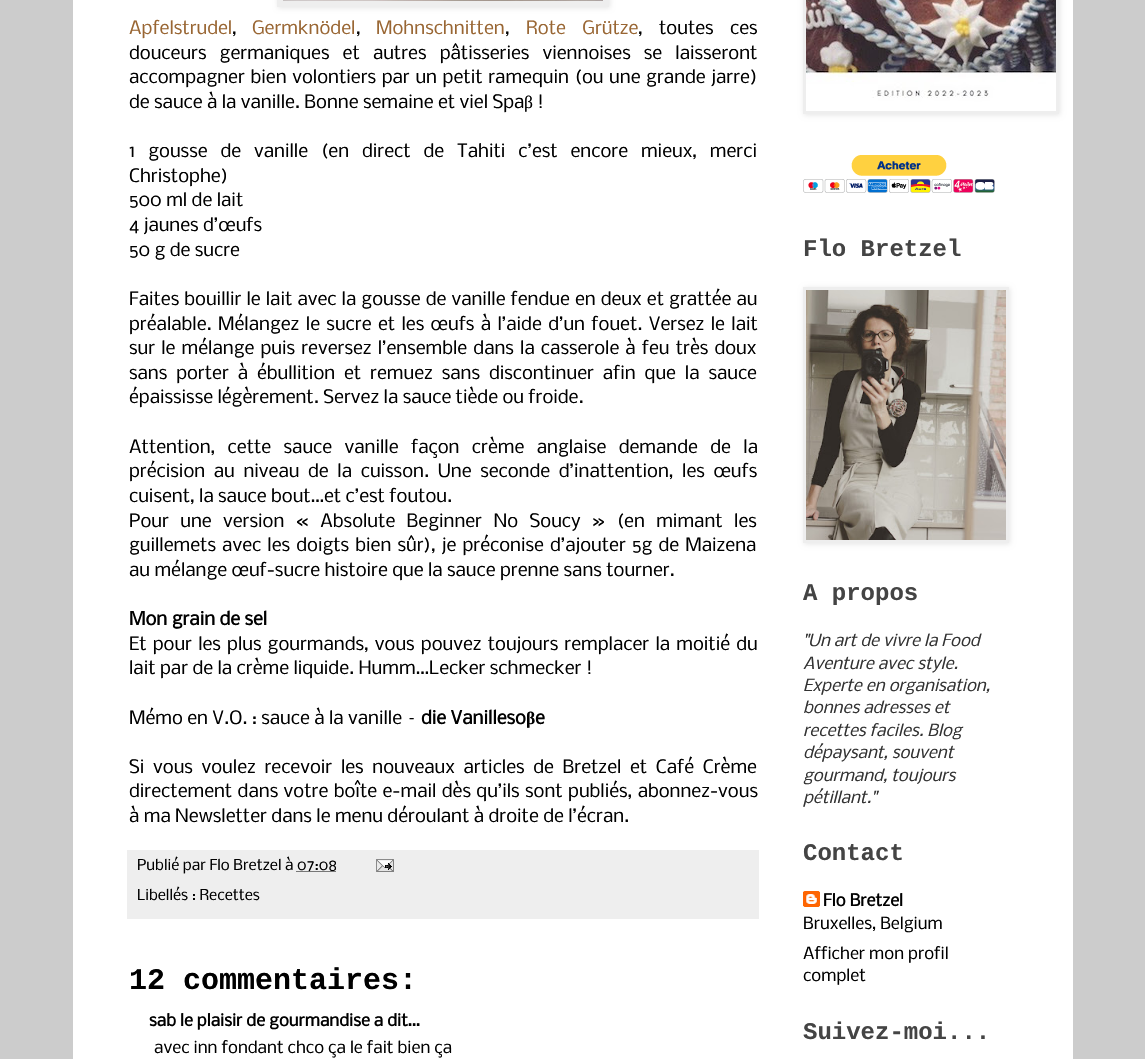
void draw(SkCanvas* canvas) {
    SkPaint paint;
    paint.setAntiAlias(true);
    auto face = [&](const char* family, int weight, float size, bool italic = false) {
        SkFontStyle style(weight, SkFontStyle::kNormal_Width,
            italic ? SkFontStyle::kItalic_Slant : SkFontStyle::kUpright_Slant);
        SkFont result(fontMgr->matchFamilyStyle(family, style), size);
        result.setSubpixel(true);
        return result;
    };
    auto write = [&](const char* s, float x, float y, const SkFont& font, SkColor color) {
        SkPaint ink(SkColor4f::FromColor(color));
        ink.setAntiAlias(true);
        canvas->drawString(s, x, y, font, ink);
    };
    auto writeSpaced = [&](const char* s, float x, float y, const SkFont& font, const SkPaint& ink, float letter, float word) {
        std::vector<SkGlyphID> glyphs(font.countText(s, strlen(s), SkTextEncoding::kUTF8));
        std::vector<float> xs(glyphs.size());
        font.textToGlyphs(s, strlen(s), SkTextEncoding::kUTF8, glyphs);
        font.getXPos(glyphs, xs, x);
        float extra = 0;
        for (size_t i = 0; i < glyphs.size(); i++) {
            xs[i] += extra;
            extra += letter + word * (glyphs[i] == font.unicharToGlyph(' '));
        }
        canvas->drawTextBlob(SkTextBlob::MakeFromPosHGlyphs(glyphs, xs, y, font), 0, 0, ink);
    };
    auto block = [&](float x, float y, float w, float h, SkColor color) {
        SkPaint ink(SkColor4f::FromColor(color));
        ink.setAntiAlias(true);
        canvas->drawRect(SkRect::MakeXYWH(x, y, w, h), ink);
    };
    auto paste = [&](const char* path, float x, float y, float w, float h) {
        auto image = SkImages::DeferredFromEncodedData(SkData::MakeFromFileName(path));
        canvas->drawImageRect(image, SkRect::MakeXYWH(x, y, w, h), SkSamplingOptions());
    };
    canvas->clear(SkColorSetRGB(204, 204, 204));
    block(73, 0, 1000, 1059, SK_ColorWHITE);
    paint.setColor(SkColorSetARGB(26, 0, 0, 0));
    paint.setMaskFilter(SkMaskFilter::MakeBlur(kNormal_SkBlurStyle, 2.5f));
    canvas->drawRect(SkRect::MakeXYWH(278, -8, 332, 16), paint);
    paint.setMaskFilter(nullptr);
    block(277, 0, 332, 7, SkColorSetRGB(238, 238, 238));
    paste("pic1.png", 283, 0, 320, 1);
    auto kFont1 = face("Nobile", 400, 17.6f);
    write("Apfelstrudel", 129, 34, kFont1, SkColorSetRGB(153, 102, 51));
    write(",", 232, 34, kFont1, SK_ColorBLACK);
    write("Germknödel", 252, 34, kFont1, SkColorSetRGB(153, 102, 51));
    write(",", 356, 34, kFont1, SK_ColorBLACK);
    write("Mohnschnitten", 376, 34, kFont1, SkColorSetRGB(153, 102, 51));
    write(",", 505, 34, kFont1, SK_ColorBLACK);
    paint.setColor(SkColorSetRGB(153, 102, 51));
    writeSpaced("Rote Grütze", 526, 34, kFont1, paint, 0, 12);
    paint.setColor(SK_ColorBLACK);
    writeSpaced(", toutes ces", 638, 34, kFont1, paint, 0, 12);
    writeSpaced("douceurs germaniques et autres pâtisseries viennoises se laisseront", 129, 59, kFont1, paint, 0, 8.75f);
    writeSpaced("accompagner bien volontiers par un petit ramequin (ou une grande jarre)", 129, 83, kFont1, paint, 0, 1.25f);
    write("de sauce à la vanille. Bonne semaine et viel Spa", 129, 108, kFont1, SK_ColorBLACK);
    auto kFont2 = face("Liberation Serif", 400, 17.6f);
    write("β", 524, 108, kFont2, SK_ColorBLACK);
    write("!", 537, 108, kFont1, SK_ColorBLACK);
    writeSpaced("1 gousse de vanille (en direct de Tahiti c’est encore mieux, merci", 129, 157, kFont1, paint, 0, 8.5f);
    write("Christophe)", 129, 182, kFont1, SK_ColorBLACK);
    write("500 ml de lait", 129, 206, kFont1, SK_ColorBLACK);
    write("4 jaunes d’œufs", 129, 231, kFont1, SK_ColorBLACK);
    write("50 g de sucre", 129, 256, kFont1, SK_ColorBLACK);
    writeSpaced("Faites bouillir le lait avec la gousse de vanille fendue en deux et grattée au", 129, 305, kFont1, paint, 0, 0.7f);
    writeSpaced("préalable. Mélangez le sucre et les œufs à l’aide d’un fouet. Versez le lait", 129, 330, kFont1, paint, 0, 2);
    writeSpaced("sur le mélange puis reversez l’ensemble dans la casserole à feu très doux", 129, 354, kFont1, paint, 0, 1.75f);
    writeSpaced("sans porter à ébullition et remuez sans discontinuer afin que la sauce", 129, 379, kFont1, paint, 0, 4.5f);
    write("épaississe légèrement. Servez la sauce tiède ou froide.", 129, 403, kFont1, SK_ColorBLACK);
    writeSpaced("Attention, cette sauce vanille façon crème anglaise demande de la", 129, 453, kFont1, paint, 0, 8);
    writeSpaced("précision au niveau de la cuisson. Une seconde d’inattention, les œufs", 129, 477, kFont1, paint, 0, 4.25f);
    write("cuisent, la sauce bout…et c’est foutou.", 129, 502, kFont1, SK_ColorBLACK);
    writeSpaced("Pour une version « Absolute Beginner No Soucy » (en mimant les", 129, 527, kFont1, paint, 0, 7);
    writeSpaced("guillemets avec les doigts bien sûr), je préconise d’ajouter 5g de Maizena", 129, 551, kFont1, paint, 0, 1.75f);
    write("au mélange œuf-sucre histoire que la sauce prenne sans tourner.", 129, 576, kFont1, SK_ColorBLACK);
    auto kFont3 = face("Nobile", 700, 17.6f);
    write("Mon grain de sel", 129, 625, kFont3, SK_ColorBLACK);
    writeSpaced("Et pour les plus gourmands, vous pouvez toujours remplacer la moitié du", 129, 650, kFont1, paint, 0, 1.75f);
    write("lait par de la crème liquide. Humm…Lecker schmecker !", 129, 674, kFont1, SK_ColorBLACK);
    write("Mémo en V.O. : sauce à la vanille –", 129, 724, kFont1, SK_ColorBLACK);
    write("die Vanilleso", 421, 724, kFont3, SK_ColorBLACK);
    auto kFont4 = face("Liberation Serif", 700, 17.6f);
    write("β", 526, 724, kFont4, SK_ColorBLACK);
    write("e", 535, 724, kFont3, SK_ColorBLACK);
    writeSpaced("Si vous voulez recevoir les nouveaux articles de Bretzel et Café Crème", 129, 773, kFont1, paint, 0, 4.25f);
    writeSpaced("directement dans votre boîte e-mail dès qu’ils sont publiés, abonnez-vous", 129, 797, kFont1, paint, 0, 1);
    write("à ma Newsletter dans le menu déroulant à droite de l’écran.", 129, 822, kFont1, SK_ColorBLACK);
    block(127, 850, 632, 69, SkColorSetRGB(238, 238, 238));
    auto kFont5 = face("Nobile", 400, 14.4f);
    write("Publié par Flo Bretzel à", 137, 870, kFont5, SK_ColorBLACK);
    paint.setStyle(SkPaint::kStroke_Style);
    paint.setStrokeWidth(1);
    paint.setPathEffect(SkDashPathEffect::Make({{1, 1}}, 0));
    canvas->drawPath(SkPathBuilder().moveTo(296.5f, 871.5f).lineTo(336.5f, 871.5f).detach(), paint);
    paint.setPathEffect(nullptr);
    write("07:08", 297, 870, kFont5, SK_ColorBLACK);
    paste("pic2.png", 376, 859, 18, 13);
    write("Libellés : Recettes", 137, 900, kFont5, SK_ColorBLACK);
    auto kFont6 = face("Liberation Mono", 700, 30);
    write("12 commentaires:", 129, 989, kFont6, SK_ColorBLACK);
    auto kFont7 = face("Nobile", 700, 16);
    write("sab le plaisir de gourmandise a dit…", 149, 1026, kFont7, SK_ColorBLACK);
    auto kFont8 = face("Nobile", 400, 16);
    write("avec inn fondant chco ça le fait bien ça", 154, 1053, kFont8, SK_ColorBLACK);
    paint.setStyle(SkPaint::kFill_Style);
    paint.setColor(SkColorSetARGB(26, 0, 0, 0));
    paint.setMaskFilter(SkMaskFilter::MakeBlur(kNormal_SkBlurStyle, 2.5f));
    canvas->drawRect(SkRect::MakeXYWH(804, -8, 256, 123), paint);
    paint.setMaskFilter(nullptr);
    block(803, 0, 256, 114, SkColorSetRGB(238, 238, 238));
    paste("pic3.png", 806, 0, 250, 111);
    paste("pic4.png", 803, 155, 192, 38);
    auto kFont9 = face("Liberation Mono", 700, 24);
    write("Flo Bretzel", 803, 256, kFont9, SkColorSetRGB(68, 68, 68));
    paint.setMaskFilter(SkMaskFilter::MakeBlur(kNormal_SkBlurStyle, 2.5f));
    canvas->drawRect(SkRect::MakeXYWH(804, 288, 206, 256), paint);
    paint.setMaskFilter(nullptr);
    block(803, 287, 206, 256, SkColorSetRGB(238, 238, 238));
    paste("pic5.png", 806, 290, 200, 250);
    write("A propos", 803, 600, kFont9, SkColorSetRGB(68, 68, 68));
    auto kFont10 = face("Nobile", 400, 16, true);
    write("\"Un art de vivre la Food", 803, 646, kFont10, SkColorSetRGB(51, 51, 51));
    write("Aventure avec style.", 803, 669, kFont10, SkColorSetRGB(51, 51, 51));
    write("Experte en organisation,", 803, 691, kFont10, SkColorSetRGB(51, 51, 51));
    write("bonnes adresses et", 803, 713, kFont10, SkColorSetRGB(51, 51, 51));
    write("recettes faciles. Blog", 803, 736, kFont10, SkColorSetRGB(51, 51, 51));
    write("dépaysant, souvent", 803, 758, kFont10, SkColorSetRGB(51, 51, 51));
    write("gourmand, toujours", 803, 781, kFont10, SkColorSetRGB(51, 51, 51));
    write("pétillant.\"", 803, 803, kFont10, SkColorSetRGB(51, 51, 51));
    write("Contact", 803, 860, kFont9, SkColorSetRGB(68, 68, 68));
    paste("pic6.png", 803, 891, 17, 16);
    write("Flo Bretzel", 823, 906, kFont7, SK_ColorBLACK);
    write("Bruxelles, Belgium", 803, 929, kFont8, SK_ColorBLACK);
    write("Afficher mon profil", 803, 959, kFont8, SK_ColorBLACK);
    write("complet", 803, 981, kFont8, SK_ColorBLACK);
    write("Suivez-moi...", 803, 1039, kFont9, SkColorSetRGB(68, 68, 68));
}
